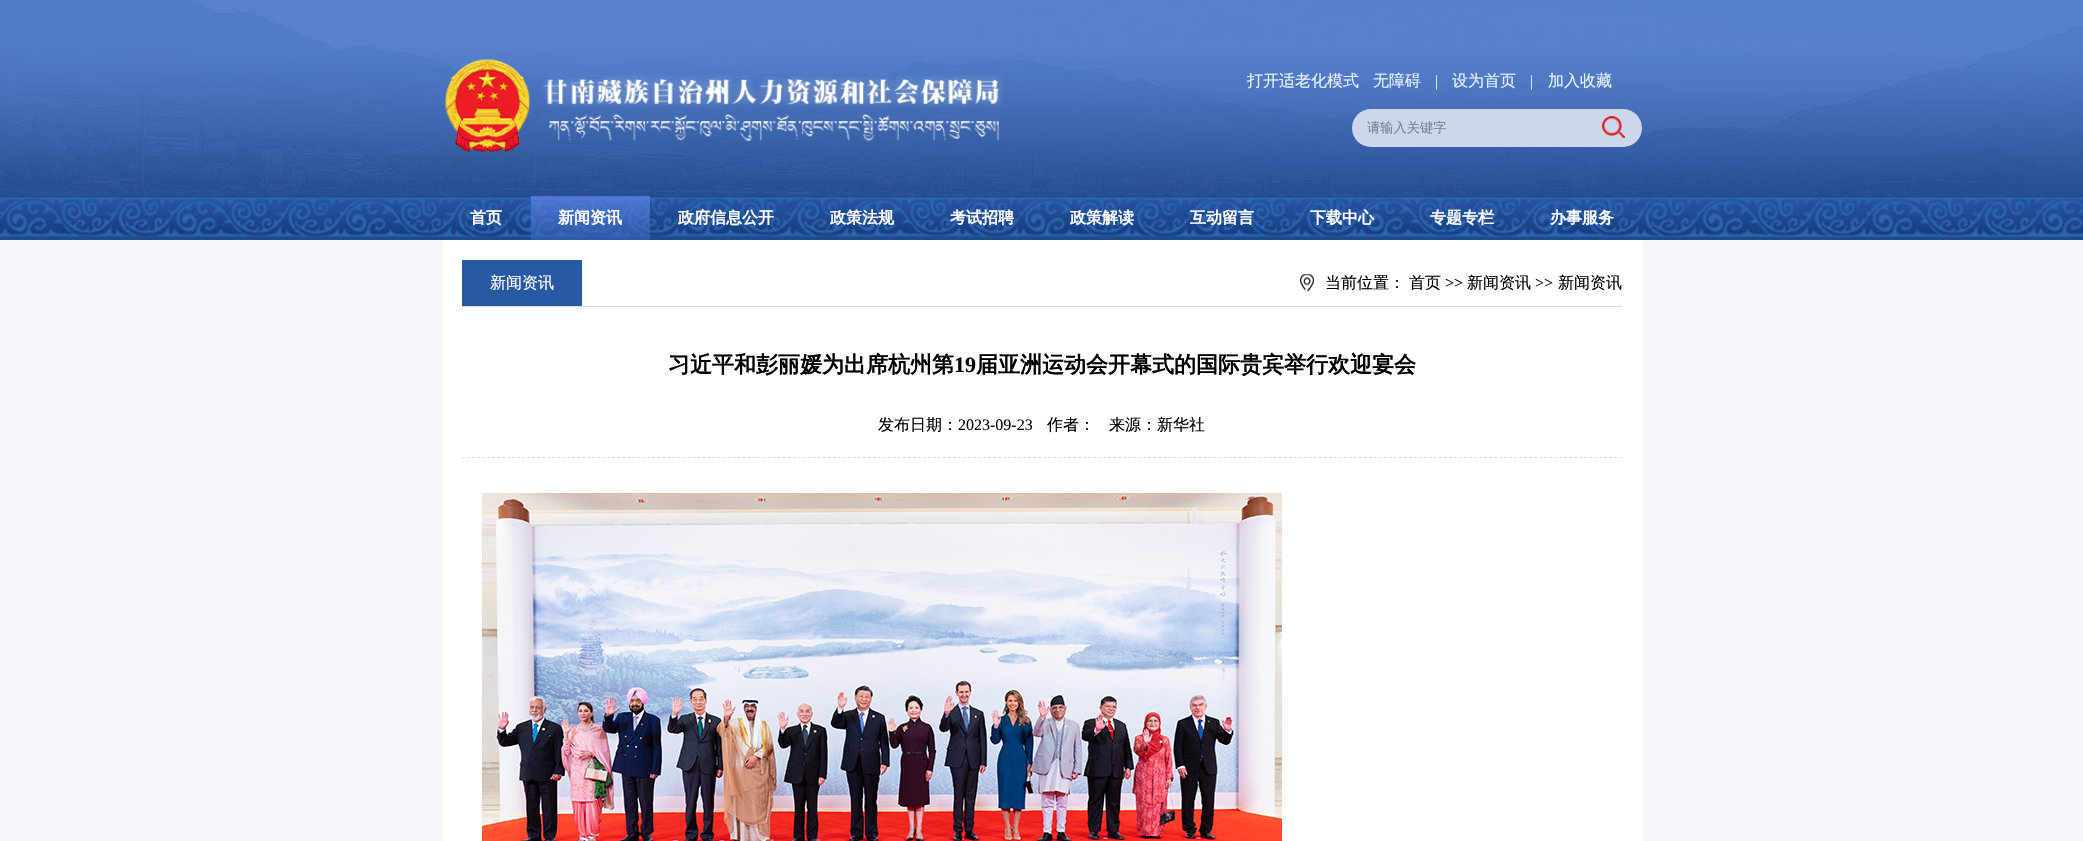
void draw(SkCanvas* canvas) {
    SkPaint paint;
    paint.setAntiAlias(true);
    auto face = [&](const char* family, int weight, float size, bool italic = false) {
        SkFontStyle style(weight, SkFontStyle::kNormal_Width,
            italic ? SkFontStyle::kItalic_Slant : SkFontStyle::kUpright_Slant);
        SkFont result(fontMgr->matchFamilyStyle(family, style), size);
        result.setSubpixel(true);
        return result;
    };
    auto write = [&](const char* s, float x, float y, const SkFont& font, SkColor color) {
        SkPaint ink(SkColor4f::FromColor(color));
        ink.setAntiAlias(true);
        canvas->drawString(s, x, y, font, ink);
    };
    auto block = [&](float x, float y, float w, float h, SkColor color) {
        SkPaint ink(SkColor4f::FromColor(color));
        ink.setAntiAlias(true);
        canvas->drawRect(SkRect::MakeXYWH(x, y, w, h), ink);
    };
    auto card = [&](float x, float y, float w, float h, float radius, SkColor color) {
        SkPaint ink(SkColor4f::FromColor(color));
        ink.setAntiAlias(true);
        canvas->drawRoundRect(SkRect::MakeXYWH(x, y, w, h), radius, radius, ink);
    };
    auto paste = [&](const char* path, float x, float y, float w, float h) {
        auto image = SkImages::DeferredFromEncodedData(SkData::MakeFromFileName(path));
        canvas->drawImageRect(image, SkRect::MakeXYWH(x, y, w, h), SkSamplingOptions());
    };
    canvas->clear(SkColorSetRGB(246, 247, 252));
    paste("pic1.png", 0, 0, 2083, 196);
    paste("pic2.png", 445, 59, 558, 93);
    auto kFont1 = face("WenQuanYi Zen Hei", 500, 16);
    write("打开适老化模式", 1247, 86, kFont1, SkColorSetRGB(232, 241, 255));
    write("无障碍", 1373, 86, kFont1, SkColorSetRGB(232, 241, 255));
    auto kFont2 = face("Liberation Serif", 400, 16);
    write("|", 1435, 86, kFont2, SkColorSetRGB(232, 241, 255));
    write("设为首页", 1452, 86, kFont1, SkColorSetRGB(232, 241, 255));
    write("|", 1530, 86, kFont2, SkColorSetRGB(232, 241, 255));
    write("加入收藏", 1548, 86, kFont1, SkColorSetRGB(232, 241, 255));
    card(1352, 109, 290, 38, 19, SkColorSetRGB(204, 215, 236));
    auto kFont3 = face("WenQuanYi Zen Hei", 500, 13.25f);
    write("请输入关键字", 1367, 132, kFont3, SkColorSetRGB(114, 129, 157));
    paste("pic3.png", 1602, 116, 23, 22);
    paste("pic4.png", 0, 196, 2083, 44);
    auto kFont4 = face("WenQuanYi Zen Hei", 700, 16);
    write("首页", 470, 223, kFont4, SK_ColorWHITE);
    paste("pic5.png", 530, 196, 120, 44);
    write("新闻资讯", 558, 223, kFont4, SK_ColorWHITE);
    write("政府信息公开", 678, 223, kFont4, SK_ColorWHITE);
    write("政策法规", 830, 223, kFont4, SK_ColorWHITE);
    write("考试招聘", 950, 223, kFont4, SK_ColorWHITE);
    write("政策解读", 1070, 223, kFont4, SK_ColorWHITE);
    write("互动留言", 1190, 223, kFont4, SK_ColorWHITE);
    write("下载中心", 1310, 223, kFont4, SK_ColorWHITE);
    write("专题专栏", 1430, 223, kFont4, SK_ColorWHITE);
    write("办事服务", 1550, 223, kFont4, SK_ColorWHITE);
    block(442, 240, 1200, 601, SK_ColorWHITE);
    block(462, 306, 1160, 1, SkColorSetRGB(221, 221, 221));
    block(462, 260, 120, 46, SkColorSetRGB(41, 89, 165));
    write("新闻资讯", 490, 288, kFont1, SK_ColorWHITE);
    paste("pic6.png", 1300, 274, 14, 17);
    write("当前位置：", 1325, 288, kFont1, SK_ColorBLACK);
    write("首页", 1409, 288, kFont1, SK_ColorBLACK);
    write(">>", 1445, 288, kFont2, SK_ColorBLACK);
    write("新闻资讯", 1467, 288, kFont1, SK_ColorBLACK);
    write(">>", 1535, 288, kFont2, SK_ColorBLACK);
    write("新闻资讯", 1558, 288, kFont1, SK_ColorBLACK);
    auto kFont5 = face("WenQuanYi Zen Hei", 700, 22);
    write("习近平和彭丽媛为出席杭州第", 668, 372, kFont5, SK_ColorBLACK);
    auto kFont6 = face("Liberation Serif", 700, 22);
    write("19", 954, 372, kFont6, SK_ColorBLACK);
    write("届亚洲运动会开幕式的国际贵宾举行欢迎宴会", 976, 372, kFont5, SK_ColorBLACK);
    paint.setStyle(SkPaint::kStroke_Style);
    paint.setStrokeWidth(1);
    paint.setColor(SkColorSetRGB(221, 221, 221));
    paint.setPathEffect(SkDashPathEffect::Make({{3, 2.01f}}, 0));
    canvas->drawPath(SkPathBuilder().moveTo(462, 457.5f).lineTo(1622, 457.5f).detach(), paint);
    paint.setPathEffect(nullptr);
    write("发布日期：", 878, 430, kFont1, SK_ColorBLACK);
    write("2023-09-23", 958, 430, kFont2, SK_ColorBLACK);
    write("作者：", 1047, 430, kFont1, SK_ColorBLACK);
    write("来源：新华社", 1109, 430, kFont1, SK_ColorBLACK);
    paste("pic7.png", 482, 493, 800, 348);
}
